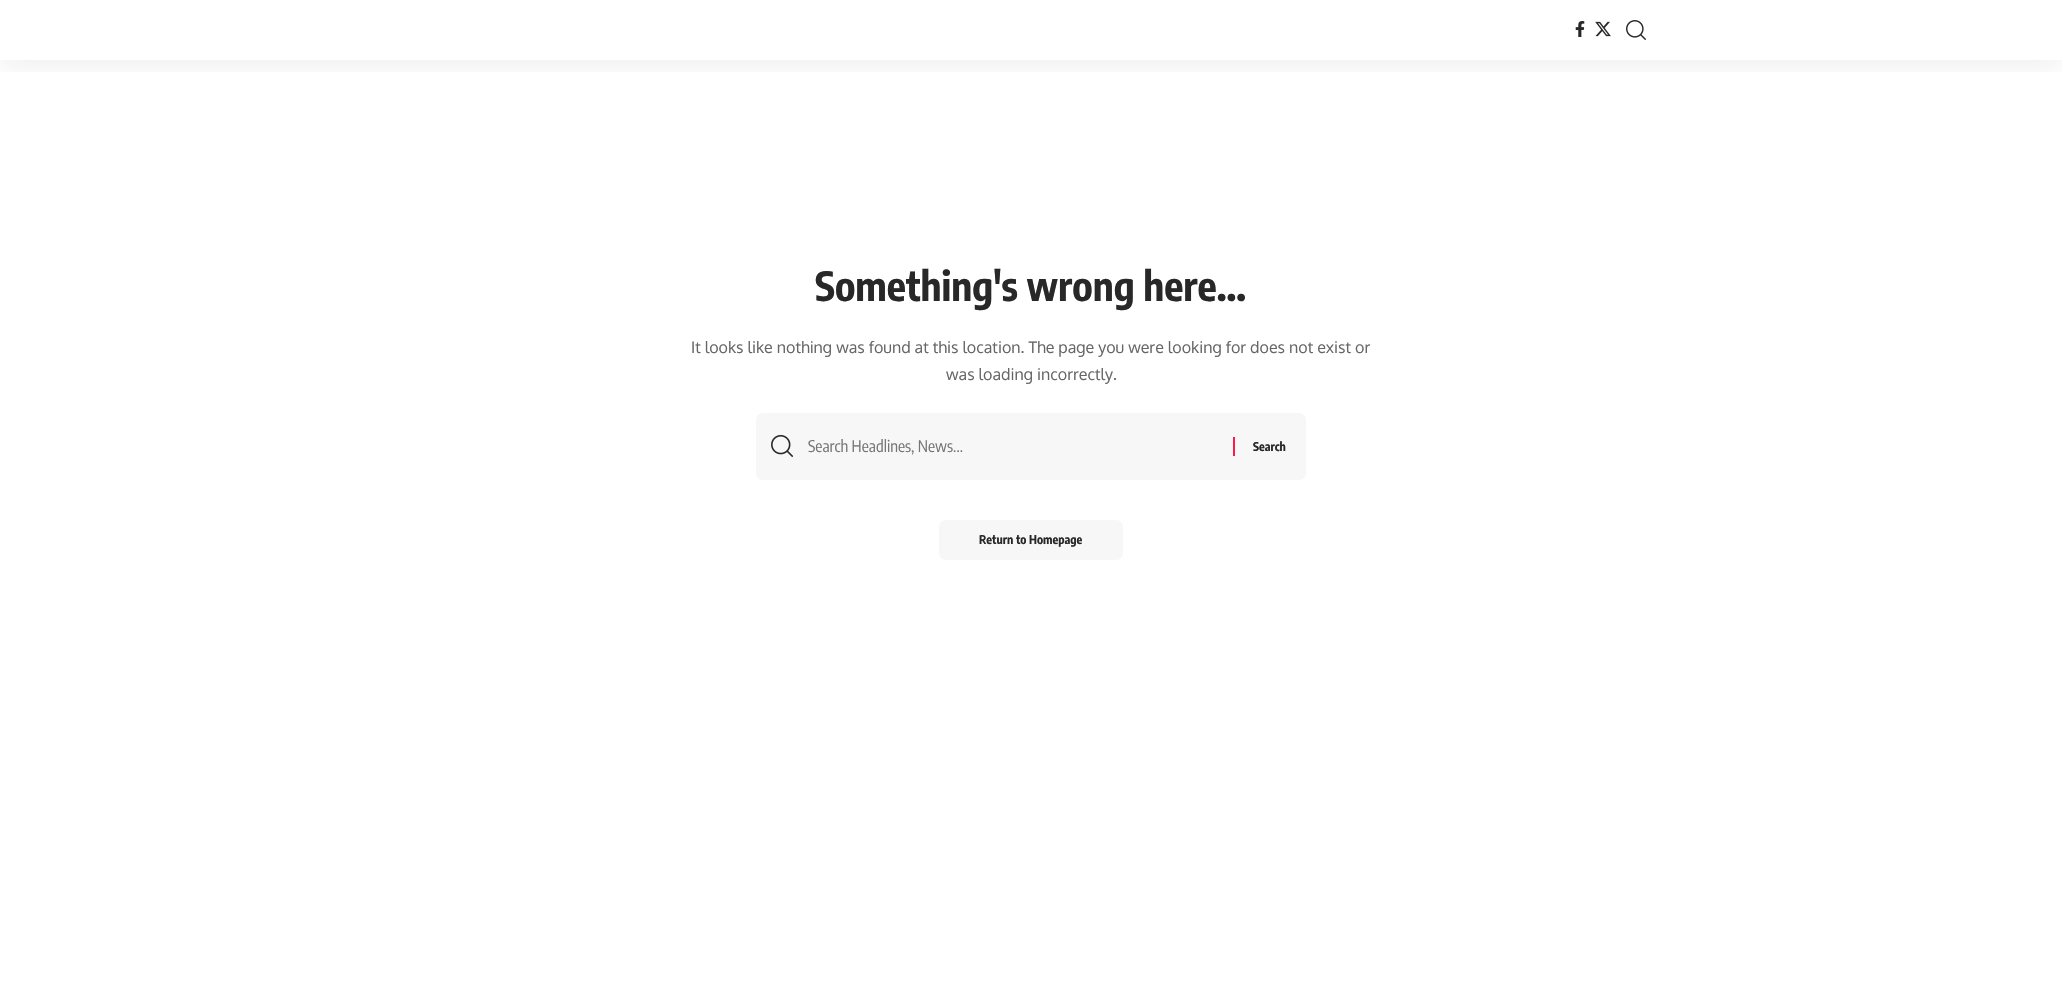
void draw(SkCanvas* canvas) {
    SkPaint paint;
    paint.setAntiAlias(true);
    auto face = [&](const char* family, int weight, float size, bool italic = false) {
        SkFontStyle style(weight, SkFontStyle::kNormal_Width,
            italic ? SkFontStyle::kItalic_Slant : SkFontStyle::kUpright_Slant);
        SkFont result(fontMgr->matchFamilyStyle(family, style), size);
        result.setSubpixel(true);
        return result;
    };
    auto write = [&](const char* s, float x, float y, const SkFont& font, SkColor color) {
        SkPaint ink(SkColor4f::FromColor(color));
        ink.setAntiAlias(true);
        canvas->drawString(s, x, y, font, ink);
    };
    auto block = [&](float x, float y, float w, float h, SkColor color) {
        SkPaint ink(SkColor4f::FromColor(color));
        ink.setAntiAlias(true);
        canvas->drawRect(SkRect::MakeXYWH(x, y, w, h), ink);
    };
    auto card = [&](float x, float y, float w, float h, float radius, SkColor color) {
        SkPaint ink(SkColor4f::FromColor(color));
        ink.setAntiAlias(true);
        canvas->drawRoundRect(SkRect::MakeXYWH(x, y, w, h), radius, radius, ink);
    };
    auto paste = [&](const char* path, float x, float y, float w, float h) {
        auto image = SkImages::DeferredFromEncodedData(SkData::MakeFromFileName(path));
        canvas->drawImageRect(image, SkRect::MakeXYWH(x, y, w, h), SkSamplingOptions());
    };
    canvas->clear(SK_ColorWHITE);
    canvas->save();
    canvas->clipRect(SkRect::MakeXYWH(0, 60, 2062, 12));
    paint.setColor(SkColorSetARGB(18, 0, 0, 0));
    paint.setMaskFilter(SkMaskFilter::MakeBlur(kNormal_SkBlurStyle, 15));
    canvas->drawRect(SkRect::MakeXYWH(0, 4, 2062, 60), paint);
    paint.setMaskFilter(nullptr);
    canvas->restore();
    paste("pic1.png", 1575, 21, 10, 16);
    paste("pic2.png", 1595, 21, 16, 16);
    paste("pic3.png", 1626, 20, 20, 20);
    auto kFont1 = face("Encode Sans Condensed", 700, 40);
    write("Something's wrong here...", 815, 301, kFont1, SkColorSetRGB(40, 40, 40));
    auto kFont2 = face("Oxygen", 400, 16);
    write("It looks like nothing was found at this location. The page you were looking for does not exist or", 691, 353, kFont2, SkColorSetRGB(102, 102, 102));
    write("was loading incorrectly.", 946, 380, kFont2, SkColorSetRGB(102, 102, 102));
    card(756, 413, 550, 67, 7, SkColorSetRGB(247, 247, 247));
    paste("pic4.png", 771, 434, 22, 23);
    auto kFont3 = face("Encode Sans Condensed", 400, 16);
    write("Search Headlines, News...", 808, 452, kFont3, SkColorSetRGB(117, 117, 117));
    block(1233, 437, 2, 19, SkColorSetRGB(255, 24, 78));
    auto kFont4 = face("Encode Sans Condensed", 700, 12);
    write("Search", 1253, 451, kFont4, SkColorSetRGB(40, 40, 40));
    card(939, 520, 184, 40, 7, SkColorSetRGB(247, 247, 247));
    write("Return to Homepage", 979, 544, kFont4, SkColorSetRGB(40, 40, 40));
}
